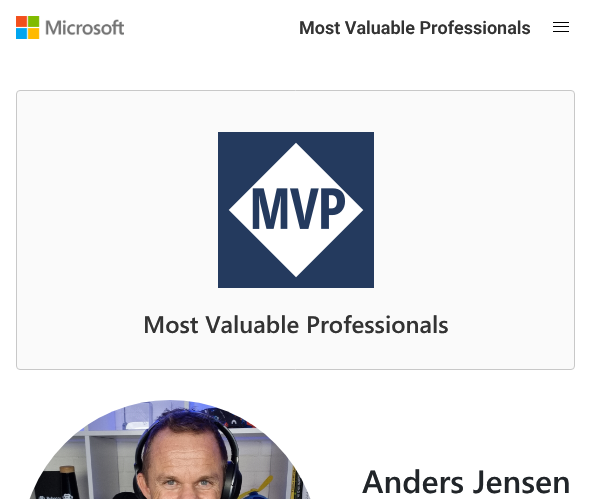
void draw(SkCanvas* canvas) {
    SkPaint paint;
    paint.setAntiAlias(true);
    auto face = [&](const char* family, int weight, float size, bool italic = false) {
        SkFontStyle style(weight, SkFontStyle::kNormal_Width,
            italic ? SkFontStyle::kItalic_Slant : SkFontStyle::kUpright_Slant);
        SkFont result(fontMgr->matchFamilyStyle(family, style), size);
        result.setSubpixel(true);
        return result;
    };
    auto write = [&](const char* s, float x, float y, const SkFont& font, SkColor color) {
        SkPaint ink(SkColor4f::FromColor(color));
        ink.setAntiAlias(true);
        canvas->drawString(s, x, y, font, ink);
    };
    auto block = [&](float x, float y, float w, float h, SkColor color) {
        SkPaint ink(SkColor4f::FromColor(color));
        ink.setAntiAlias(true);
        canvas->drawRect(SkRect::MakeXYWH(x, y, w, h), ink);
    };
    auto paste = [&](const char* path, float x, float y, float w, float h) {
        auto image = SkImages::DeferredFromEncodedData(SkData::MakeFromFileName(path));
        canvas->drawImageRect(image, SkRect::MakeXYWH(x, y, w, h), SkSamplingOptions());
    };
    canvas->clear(SK_ColorWHITE);
    paste("pic1.png", 16, 16, 108, 23);
    auto kFont1 = face("Roboto", 600, 18);
    write("Most Valuable Professionals", 299, 34, kFont1, SkColorSetRGB(51, 51, 51));
    block(553, 22, 16, 1, SK_ColorBLACK);
    block(553, 26, 16, 1, SK_ColorBLACK);
    block(553, 31, 16, 1, SK_ColorBLACK);
    paint.setColor(SkColorSetRGB(250, 250, 250));
    canvas->drawRoundRect(SkRect::MakeXYWH(16.5f, 90.5f, 558, 279), 3.5f, 3.5f, paint);
    paint.setStyle(SkPaint::kStroke_Style);
    paint.setStrokeWidth(1);
    paint.setColor(SkColorSetRGB(200, 200, 200));
    canvas->drawRoundRect(SkRect::MakeXYWH(16.5f, 90.5f, 558, 279), 3.5f, 3.5f, paint);
    paste("pic2.png", 218, 132, 156, 156);
    auto kFont2 = face("Segoe UI", 600, 24);
    write("Most Valuable Professionals", 143, 333, kFont2, SkColorSetRGB(51, 51, 51));
    paste("pic3.png", 29, 400, 282, 99);
    auto kFont3 = face("Segoe UI", 600, 32);
    write("Anders Jensen", 362, 493, kFont3, SkColorSetRGB(33, 37, 41));
}
